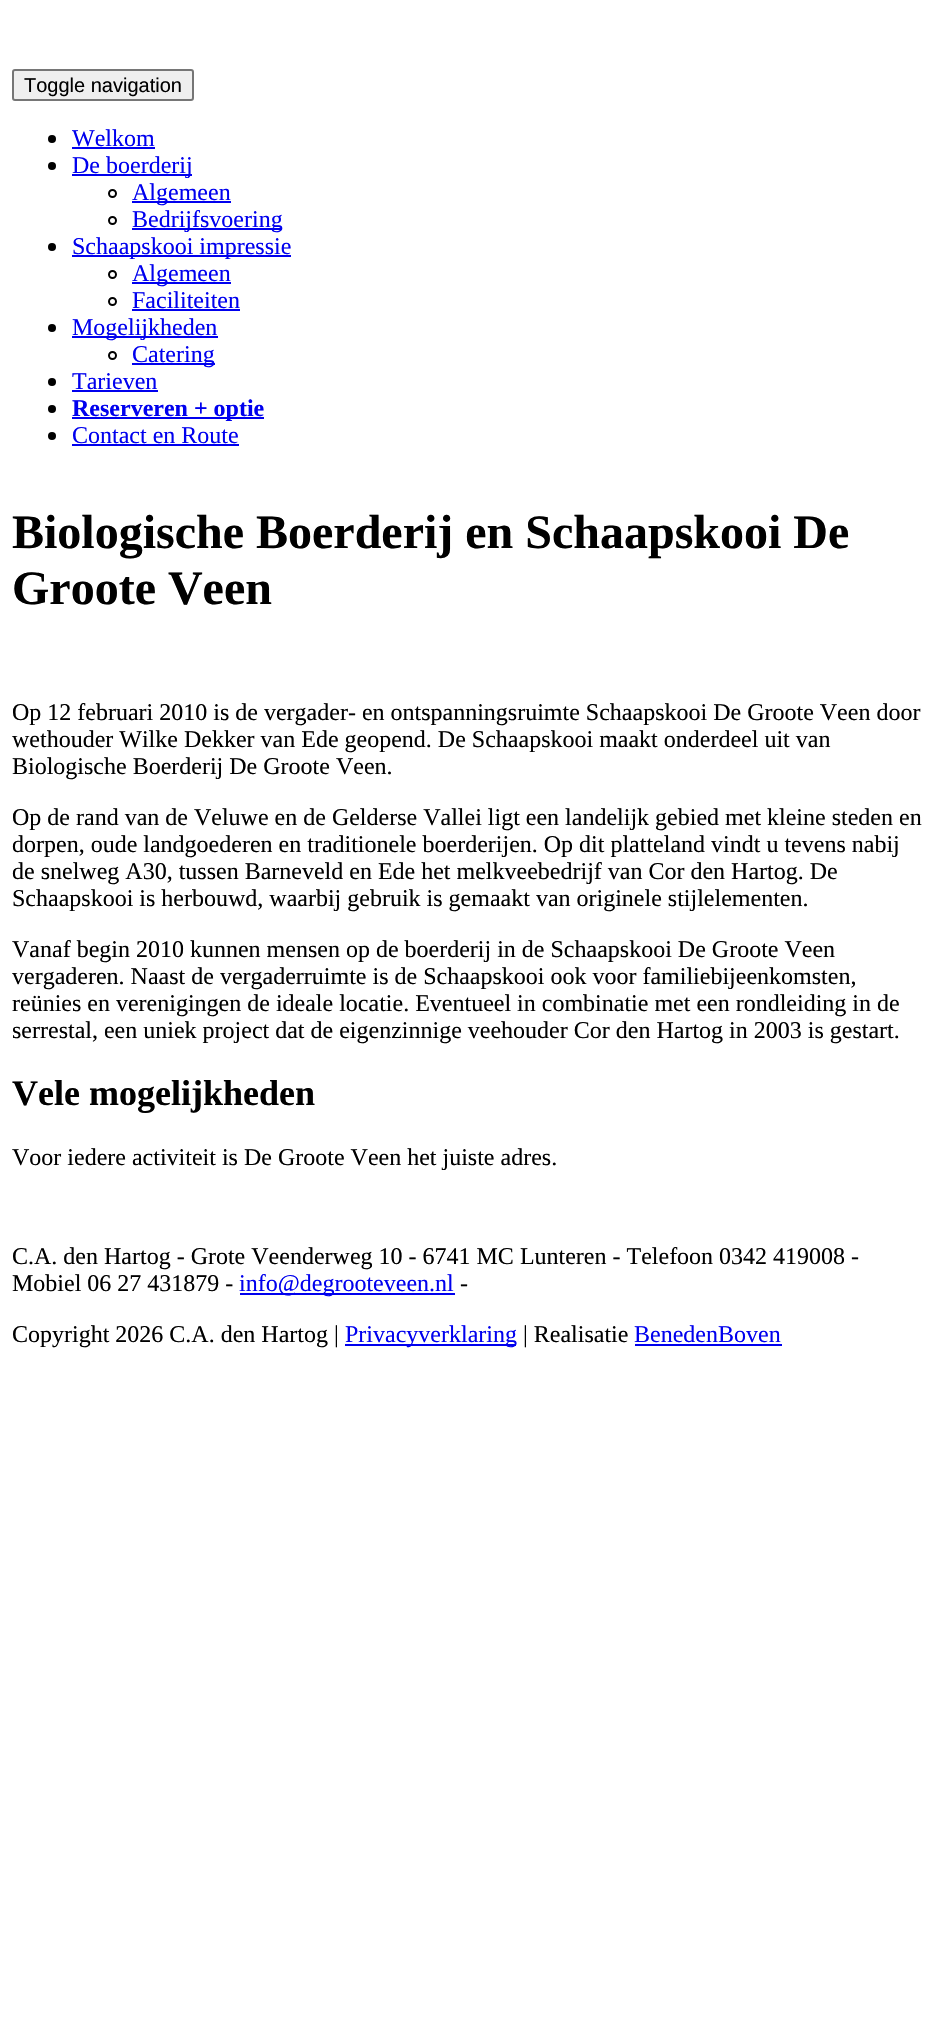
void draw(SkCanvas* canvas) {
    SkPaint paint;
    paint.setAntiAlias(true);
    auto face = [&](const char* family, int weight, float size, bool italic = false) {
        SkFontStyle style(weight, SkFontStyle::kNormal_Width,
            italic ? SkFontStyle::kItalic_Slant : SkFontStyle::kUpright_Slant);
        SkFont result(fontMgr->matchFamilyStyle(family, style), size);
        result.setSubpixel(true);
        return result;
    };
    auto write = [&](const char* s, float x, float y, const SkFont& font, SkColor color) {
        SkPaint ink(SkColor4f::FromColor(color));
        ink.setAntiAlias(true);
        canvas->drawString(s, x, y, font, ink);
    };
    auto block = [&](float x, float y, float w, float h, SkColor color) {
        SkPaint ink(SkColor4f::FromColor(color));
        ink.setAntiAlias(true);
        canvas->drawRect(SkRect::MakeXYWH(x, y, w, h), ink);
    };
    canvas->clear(SK_ColorWHITE);
    paint.setColor(SkColorSetRGB(239, 239, 239));
    canvas->drawRoundRect(SkRect::MakeXYWH(13, 70, 180, 30), 2, 2, paint);
    paint.setStyle(SkPaint::kStroke_Style);
    paint.setStrokeWidth(2);
    paint.setColor(SkColorSetRGB(118, 118, 118));
    canvas->drawRoundRect(SkRect::MakeXYWH(13, 70, 180, 30), 2, 2, paint);
    auto kFont1 = face("Liberation Sans", 400, 20);
    write("Toggle navigation", 24, 92, kFont1, SK_ColorBLACK);
    paint.setStyle(SkPaint::kFill_Style);
    paint.setColor(SK_ColorBLACK);
    canvas->drawCircle(52, 139, 4, paint);
    auto kFont2 = face("Liberation Serif", 400, 24);
    write("Welkom", 72, 146, kFont2, SkColorSetRGB(0, 0, 238));
    block(72, 147, 83, 2, SkColorSetRGB(0, 0, 238));
    canvas->drawCircle(52, 166, 4, paint);
    block(72, 174, 120, 2, SkColorSetRGB(0, 0, 238));
    write("De boerderij", 72, 173, kFont2, SkColorSetRGB(0, 0, 238));
    paint.setStyle(SkPaint::kStroke_Style);
    canvas->drawCircle(112.5f, 193.5f, 3.5f, paint);
    block(132, 201, 99, 2, SkColorSetRGB(0, 0, 238));
    write("Algemeen", 132, 200, kFont2, SkColorSetRGB(0, 0, 238));
    canvas->drawCircle(112.5f, 220.5f, 3.5f, paint);
    block(132, 228, 150, 2, SkColorSetRGB(0, 0, 238));
    write("Bedrijfsvoering", 132, 227, kFont2, SkColorSetRGB(0, 0, 238));
    paint.setStyle(SkPaint::kFill_Style);
    canvas->drawCircle(52, 247, 4, paint);
    block(72, 255, 219, 2, SkColorSetRGB(0, 0, 238));
    write("Schaapskooi impressie", 72, 254, kFont2, SkColorSetRGB(0, 0, 238));
    paint.setStyle(SkPaint::kStroke_Style);
    canvas->drawCircle(112.5f, 274.5f, 3.5f, paint);
    block(132, 282, 99, 2, SkColorSetRGB(0, 0, 238));
    write("Algemeen", 132, 281, kFont2, SkColorSetRGB(0, 0, 238));
    canvas->drawCircle(112.5f, 301.5f, 3.5f, paint);
    write("Faciliteiten", 132, 308, kFont2, SkColorSetRGB(0, 0, 238));
    block(132, 309, 108, 2, SkColorSetRGB(0, 0, 238));
    paint.setStyle(SkPaint::kFill_Style);
    canvas->drawCircle(52, 328, 4, paint);
    block(72, 336, 146, 2, SkColorSetRGB(0, 0, 238));
    write("Mogelijkheden", 72, 335, kFont2, SkColorSetRGB(0, 0, 238));
    paint.setStyle(SkPaint::kStroke_Style);
    canvas->drawCircle(112.5f, 355.5f, 3.5f, paint);
    block(132, 363, 83, 2, SkColorSetRGB(0, 0, 238));
    write("Catering", 132, 362, kFont2, SkColorSetRGB(0, 0, 238));
    paint.setStyle(SkPaint::kFill_Style);
    canvas->drawCircle(52, 382, 4, paint);
    write("Tarieven", 72, 389, kFont2, SkColorSetRGB(0, 0, 238));
    block(72, 390, 86, 2, SkColorSetRGB(0, 0, 238));
    canvas->drawCircle(52, 409, 4, paint);
    block(72, 417, 192, 2, SkColorSetRGB(0, 0, 238));
    auto kFont3 = face("Liberation Serif", 700, 24);
    write("Reserveren + optie", 72, 416, kFont3, SkColorSetRGB(0, 0, 238));
    canvas->drawCircle(52, 436, 4, paint);
    write("Contact en Route", 72, 443, kFont2, SkColorSetRGB(0, 0, 238));
    block(72, 444, 167, 2, SkColorSetRGB(0, 0, 238));
    auto kFont4 = face("Liberation Serif", 700, 48);
    write("Biologische Boerderij en Schaapskooi De", 12, 548, kFont4, SK_ColorBLACK);
    write("Groote Veen", 12, 604, kFont4, SK_ColorBLACK);
    write("Op 12 februari 2010 is de vergader- en ontspanningsruimte Schaapskooi De Groote Veen door", 12, 720, kFont2, SK_ColorBLACK);
    write("wethouder Wilke Dekker van Ede geopend. De Schaapskooi maakt onderdeel uit van", 12, 747, kFont2, SK_ColorBLACK);
    write("Biologische Boerderij De Groote Veen.", 12, 774, kFont2, SK_ColorBLACK);
    write("Op de rand van de Veluwe en de Gelderse Vallei ligt een landelijk gebied met kleine steden en", 12, 825, kFont2, SK_ColorBLACK);
    write("dorpen, oude landgoederen en traditionele boerderijen. Op dit platteland vindt u tevens nabij", 12, 852, kFont2, SK_ColorBLACK);
    write("de snelweg A30, tussen Barneveld en Ede het melkveebedrijf van Cor den Hartog. De", 12, 879, kFont2, SK_ColorBLACK);
    write("Schaapskooi is herbouwd, waarbij gebruik is gemaakt van originele stijlelementen.", 12, 906, kFont2, SK_ColorBLACK);
    write("Vanaf begin 2010 kunnen mensen op de boerderij in de Schaapskooi De Groote Veen", 12, 957, kFont2, SK_ColorBLACK);
    write("vergaderen. Naast de vergaderruimte is de Schaapskooi ook voor familiebijeenkomsten,", 12, 984, kFont2, SK_ColorBLACK);
    write("reünies en verenigingen de ideale locatie. Eventueel in combinatie met een rondleiding in de", 12, 1011, kFont2, SK_ColorBLACK);
    write("serrestal, een uniek project dat de eigenzinnige veehouder Cor den Hartog in 2003 is gestart.", 12, 1038, kFont2, SK_ColorBLACK);
    auto kFont5 = face("Liberation Serif", 700, 36);
    write("Vele mogelijkheden", 12, 1105, kFont5, SK_ColorBLACK);
    write("Voor iedere activiteit is De Groote Veen het juiste adres.", 12, 1165, kFont2, SK_ColorBLACK);
    write("C.A. den Hartog - Grote Veenderweg 10 - 6741 MC Lunteren - Telefoon 0342 419008 -", 12, 1264, kFont2, SK_ColorBLACK);
    write("Mobiel 06 27 431879 -", 12, 1291, kFont2, SK_ColorBLACK);
    block(240, 1293, 215, 2, SkColorSetRGB(0, 0, 238));
    write("info@degrooteveen.nl", 239, 1291, kFont2, SkColorSetRGB(0, 0, 238));
    write("-", 460, 1291, kFont2, SK_ColorBLACK);
    write("Copyright 2026 C.A. den Hartog |", 12, 1342, kFont2, SK_ColorBLACK);
    block(345, 1344, 171, 2, SkColorSetRGB(0, 0, 238));
    write("Privacyverklaring", 345, 1342, kFont2, SkColorSetRGB(0, 0, 238));
    write("| Realisatie", 523, 1342, kFont2, SK_ColorBLACK);
    write("BenedenBoven", 634, 1342, kFont2, SkColorSetRGB(0, 0, 238));
    block(635, 1344, 147, 2, SkColorSetRGB(0, 0, 238));
}
